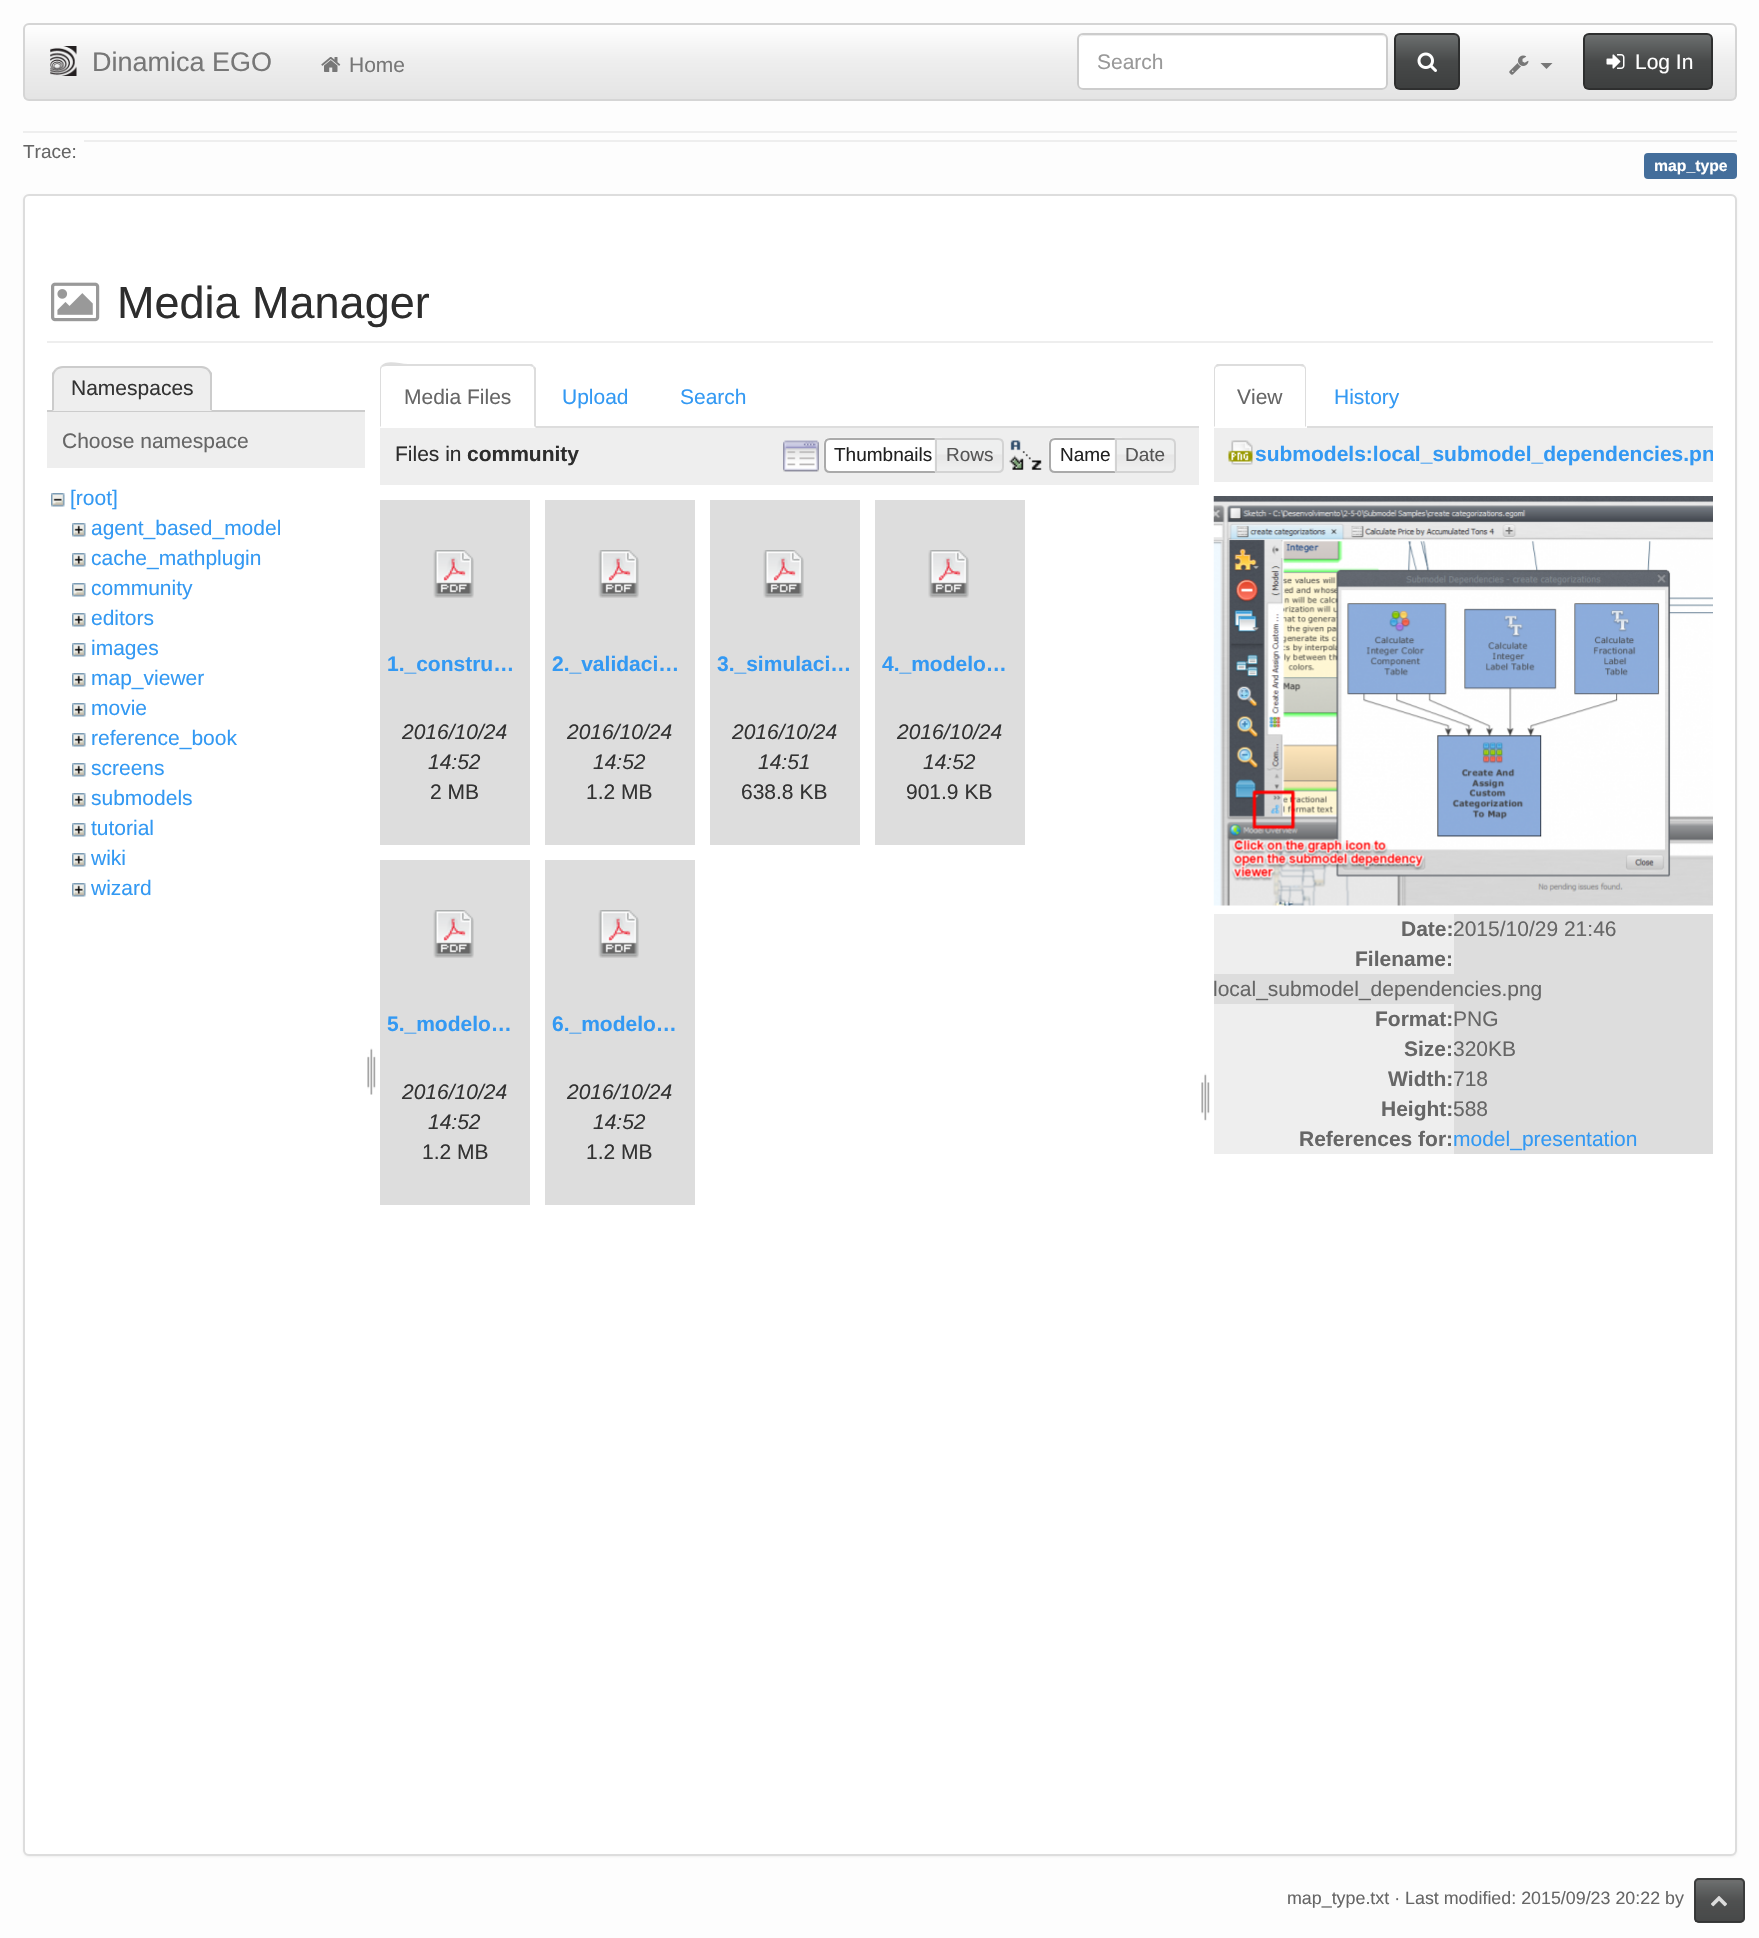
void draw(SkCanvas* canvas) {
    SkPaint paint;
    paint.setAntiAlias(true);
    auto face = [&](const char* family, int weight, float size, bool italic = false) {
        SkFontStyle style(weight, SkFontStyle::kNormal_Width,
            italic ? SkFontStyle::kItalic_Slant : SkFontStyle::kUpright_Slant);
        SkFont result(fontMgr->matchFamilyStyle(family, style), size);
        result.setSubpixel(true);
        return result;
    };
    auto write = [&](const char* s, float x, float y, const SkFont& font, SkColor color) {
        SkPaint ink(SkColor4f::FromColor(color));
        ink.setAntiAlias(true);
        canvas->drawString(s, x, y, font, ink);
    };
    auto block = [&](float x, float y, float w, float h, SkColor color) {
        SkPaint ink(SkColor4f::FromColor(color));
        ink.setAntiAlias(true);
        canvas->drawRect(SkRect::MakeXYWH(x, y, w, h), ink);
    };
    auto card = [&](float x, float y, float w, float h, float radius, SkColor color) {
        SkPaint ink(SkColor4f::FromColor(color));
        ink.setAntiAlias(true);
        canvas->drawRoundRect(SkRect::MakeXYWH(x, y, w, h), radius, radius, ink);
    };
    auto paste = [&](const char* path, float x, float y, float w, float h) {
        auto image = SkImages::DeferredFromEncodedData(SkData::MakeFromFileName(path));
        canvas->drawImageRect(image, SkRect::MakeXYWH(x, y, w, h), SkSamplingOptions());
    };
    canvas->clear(SkColorSetRGB(253, 253, 253));
    canvas->save();
    canvas->clipPath(SkPathBuilder().moveTo(29, 23).lineTo(1731, 23).cubicTo(1734.5f, 23, 1737, 25.5f, 1737, 29).lineTo(1737, 95).cubicTo(1737, 98.5f, 1734.5f, 101, 1731, 101).lineTo(29, 101).cubicTo(25.5f, 101, 23, 98.5f, 23, 95).lineTo(23, 29).cubicTo(23, 25.5f, 25.5f, 23, 29, 23).close().detach(), true);
    {
        const SkColor colors[] = {SK_ColorWHITE, SkColorSetRGB(238, 238, 238), SkColorSetRGB(228, 228, 228)};
        const float stops[] = {0, 0.5f, 1};
        const SkPoint ends[] = {{880, 24}, {880, 99}};
        paint.setShader(SkGradientShader::MakeLinear(ends, colors, stops, 3, SkTileMode::kClamp));
        paint.setAlpha(255);
    }
    canvas->drawRect(SkRect::MakeXYWH(24, 24, 1712, 75), paint);
    canvas->restore();
    paint.setStyle(SkPaint::kStroke_Style);
    paint.setStrokeWidth(2);
    paint.setShader(nullptr);
    paint.setColor(SkColorSetRGB(213, 213, 213));
    canvas->drawRoundRect(SkRect::MakeXYWH(24, 24, 1712, 76), 5, 5, paint);
    paste("pic1.png", 50, 46, 27, 30);
    auto kFont1 = face("Liberation Sans", 400, 27);
    write("Dinamica EGO", 92, 71, kFont1, SkColorSetRGB(119, 119, 119));
    paste("pic2.png", 321, 57, 20, 15);
    auto kFont2 = face("Liberation Sans", 400, 21);
    write("Home", 349, 72, kFont2, SkColorSetRGB(119, 119, 119));
    card(1077, 33, 311, 57, 6, SK_ColorWHITE);
    paint.setStyle(SkPaint::kFill_Style);
    paint.setColor(SkColorSetRGB(236, 236, 236));
    canvas->drawPath(SkPathBuilder().moveTo(1083, 36).lineTo(1382, 36).cubicTo(1384, 36, 1386, 38, 1386, 40).cubicTo(1386, 37, 1384, 35, 1381, 35).lineTo(1084, 35).cubicTo(1082, 35, 1081, 36, 1080, 37).close().detach(), paint);
    paint.setStyle(SkPaint::kStroke_Style);
    paint.setColor(SkColorSetRGB(204, 204, 204));
    canvas->drawRoundRect(SkRect::MakeXYWH(1078, 34, 309, 55), 5, 5, paint);
    write("Search", 1097, 69, kFont2, SkColorSetRGB(153, 153, 153));
    canvas->save();
    canvas->clipPath(SkPathBuilder().moveTo(1400, 33).lineTo(1454, 33).cubicTo(1457.5f, 33, 1460, 35.5f, 1460, 39).lineTo(1460, 84).cubicTo(1460, 87.5f, 1457.5f, 90, 1454, 90).lineTo(1400, 90).cubicTo(1396.5f, 90, 1394, 87.5f, 1394, 84).lineTo(1394, 39).cubicTo(1394, 35.5f, 1396.5f, 33, 1400, 33).close().detach(), true);
    paint.setStyle(SkPaint::kFill_Style);
    {
        const SkColor colors[] = {SkColorSetRGB(109, 112, 112), SkColorSetRGB(71, 73, 73), SkColorSetRGB(61, 63, 63)};
        const float stops[] = {0, 0.5f, 1};
        const SkPoint ends[] = {{1427, 34}, {1427, 89}};
        paint.setShader(SkGradientShader::MakeLinear(ends, colors, stops, 3, SkTileMode::kClamp));
        paint.setAlpha(255);
    }
    canvas->drawRect(SkRect::MakeXYWH(1395, 35, 63, 54), paint);
    canvas->restore();
    paint.setStyle(SkPaint::kStroke_Style);
    paint.setShader(nullptr);
    paint.setColor(SkColorSetRGB(46, 47, 47));
    canvas->drawRoundRect(SkRect::MakeXYWH(1395, 34, 64, 55), 5, 5, paint);
    paste("pic3.png", 1417, 52, 20, 20);
    paste("pic4.png", 1509, 55, 20, 20);
    paint.setStyle(SkPaint::kFill_Style);
    paint.setColor(SkColorSetRGB(119, 119, 119));
    canvas->drawPath(SkPathBuilder().moveTo(1540.5f, 63).lineTo(1552.5f, 63).lineTo(1546.5f, 69).close().detach(), paint);
    canvas->save();
    canvas->clipPath(SkPathBuilder().moveTo(1589, 33).lineTo(1707, 33).cubicTo(1710.5f, 33, 1713, 35.5f, 1713, 39).lineTo(1713, 84).cubicTo(1713, 87.5f, 1710.5f, 90, 1707, 90).lineTo(1589, 90).cubicTo(1585.5f, 90, 1583, 87.5f, 1583, 84).lineTo(1583, 39).cubicTo(1583, 35.5f, 1585.5f, 33, 1589, 33).close().detach(), true);
    {
        const SkColor colors[] = {SkColorSetRGB(109, 112, 112), SkColorSetRGB(71, 73, 73), SkColorSetRGB(61, 63, 63)};
        const float stops[] = {0, 0.5f, 1};
        const SkPoint ends[] = {{1648, 34}, {1648, 89}};
        paint.setShader(SkGradientShader::MakeLinear(ends, colors, stops, 3, SkTileMode::kClamp));
        paint.setAlpha(255);
    }
    canvas->drawRect(SkRect::MakeXYWH(1584, 35, 128, 54), paint);
    canvas->restore();
    paint.setStyle(SkPaint::kStroke_Style);
    paint.setShader(nullptr);
    paint.setColor(SkColorSetRGB(46, 47, 47));
    canvas->drawRoundRect(SkRect::MakeXYWH(1584, 34, 128, 55), 5, 5, paint);
    paste("pic5.png", 1606, 54, 19, 15);
    write("Log In", 1635, 69, kFont2, SK_ColorWHITE);
    block(23, 131, 1714, 2, SkColorSetRGB(238, 238, 238));
    block(84, 140, 1653, 2, SkColorSetRGB(238, 238, 238));
    auto kFont3 = face("Liberation Sans", 400, 19);
    write("Trace:", 23, 158, kFont3, SkColorSetRGB(102, 102, 102));
    card(1644, 153, 93, 26, 4, SkColorSetRGB(68, 110, 155));
    auto kFont4 = face("Liberation Sans", 700, 15.75f);
    write("map_type", 1654, 171, kFont4, SK_ColorWHITE);
    paint.setStyle(SkPaint::kFill_Style);
    paint.setColor(SkColorSetARGB(13, 0, 0, 0));
    paint.setMaskFilter(SkMaskFilter::MakeBlur(kNormal_SkBlurStyle, 1));
    canvas->drawRoundRect(SkRect::MakeXYWH(23, 195, 1714, 1662), 6, 6, paint);
    paint.setMaskFilter(nullptr);
    paint.setColor(SK_ColorWHITE);
    canvas->drawRoundRect(SkRect::MakeXYWH(24, 195, 1712, 1660), 5, 5, paint);
    paint.setStyle(SkPaint::kStroke_Style);
    paint.setColor(SkColorSetRGB(221, 221, 221));
    canvas->drawRoundRect(SkRect::MakeXYWH(24, 195, 1712, 1660), 5, 5, paint);
    block(47, 341, 1666, 2, SkColorSetRGB(238, 238, 238));
    paste("pic6.png", 51, 282, 49, 40);
    auto kFont5 = face("Liberation Sans", 400, 45);
    write("Media Manager", 117, 318, kFont5, SkColorSetRGB(45, 45, 45));
    block(47, 410, 318, 2, SkColorSetRGB(204, 204, 204));
    paint.setStyle(SkPaint::kFill_Style);
    paint.setColor(SkColorSetRGB(238, 238, 238));
    canvas->drawPath(SkPathBuilder().moveTo(64, 366).lineTo(201, 366).cubicTo(207, 366, 212, 371, 212, 377).lineTo(212, 411).lineTo(53, 411).lineTo(53, 377).cubicTo(53, 371, 58, 366, 64, 366).close().detach(), paint);
    paint.setColor(SkColorSetRGB(204, 204, 204));
    canvas->drawPath(SkPathBuilder().moveTo(63, 366).cubicTo(60, 366, 57, 367, 55, 369).lineTo(57, 370).cubicTo(58, 369, 61, 368, 63, 368).lineTo(201, 368).cubicTo(203, 368, 206, 369, 207, 370).lineTo(209, 369).cubicTo(207, 367, 204, 366, 201, 366).close().detach(), paint);
    canvas->drawPath(SkPathBuilder().moveTo(212, 373).lineTo(212, 411).lineTo(210, 410).lineTo(210, 376).cubicTo(210, 374, 209, 372, 207, 370).lineTo(209, 369).close().detach(), paint);
    paint.setColor(SkColorSetRGB(238, 238, 238));
    canvas->drawPath(SkPathBuilder().moveTo(212, 411).lineTo(210, 410).lineTo(54, 410).lineTo(52, 411).close().detach(), paint);
    paint.setColor(SkColorSetRGB(204, 204, 204));
    canvas->drawPath(SkPathBuilder().moveTo(52, 411).lineTo(52, 373).lineTo(55, 369).lineTo(57, 370).cubicTo(55, 372, 54, 374, 54, 376).lineTo(54, 410).close().detach(), paint);
    write("Namespaces", 71, 395, kFont2, SkColorSetRGB(51, 51, 51));
    block(47, 412, 318, 56, SkColorSetRGB(238, 238, 238));
    write("Choose namespace", 62, 448, kFont2, SkColorSetRGB(102, 102, 102));
    paste("pic7.png", 51, 493, 14, 14);
    write("[root]", 70, 505, kFont2, SkColorSetRGB(51, 153, 243));
    paste("pic8.png", 72, 523, 14, 14);
    write("agent_based_model", 91, 535, kFont2, SkColorSetRGB(51, 153, 243));
    paste("pic8.png", 72, 553, 14, 14);
    write("cache_mathplugin", 91, 565, kFont2, SkColorSetRGB(51, 153, 243));
    paste("pic7.png", 72, 583, 14, 14);
    write("community", 91, 595, kFont2, SkColorSetRGB(51, 153, 243));
    paste("pic8.png", 72, 613, 14, 14);
    write("editors", 91, 625, kFont2, SkColorSetRGB(51, 153, 243));
    paste("pic8.png", 72, 643, 14, 14);
    write("images", 91, 655, kFont2, SkColorSetRGB(51, 153, 243));
    paste("pic8.png", 72, 673, 14, 14);
    write("map_viewer", 91, 685, kFont2, SkColorSetRGB(51, 153, 243));
    paste("pic8.png", 72, 703, 14, 14);
    write("movie", 91, 715, kFont2, SkColorSetRGB(51, 153, 243));
    paste("pic8.png", 72, 733, 14, 14);
    write("reference_book", 91, 745, kFont2, SkColorSetRGB(51, 153, 243));
    paste("pic8.png", 72, 763, 14, 14);
    write("screens", 91, 775, kFont2, SkColorSetRGB(51, 153, 243));
    paste("pic8.png", 72, 793, 14, 14);
    write("submodels", 91, 805, kFont2, SkColorSetRGB(51, 153, 243));
    paste("pic8.png", 72, 823, 14, 14);
    write("tutorial", 91, 835, kFont2, SkColorSetRGB(51, 153, 243));
    paste("pic8.png", 72, 853, 14, 14);
    write("wiki", 91, 865, kFont2, SkColorSetRGB(51, 153, 243));
    paste("pic8.png", 72, 883, 14, 14);
    write("wizard", 91, 895, kFont2, SkColorSetRGB(51, 153, 243));
    paste("pic9.png", 367, 1048, 9, 47);
    block(536, 426, 663, 2, SkColorSetRGB(221, 221, 221));
    paint.setColor(SkColorSetRGB(221, 221, 221));
    canvas->drawPath(SkPathBuilder().moveTo(386, 366).cubicTo(384, 366, 383, 367, 382, 367).lineTo(381, 366).cubicTo(387, 359, 399, 364, 408, 364).lineTo(532, 364).lineTo(534, 366).lineTo(533, 367).lineTo(530, 366).close().detach(), paint);
    canvas->drawPath(SkPathBuilder().moveTo(534, 366).lineTo(536, 368).lineTo(536, 428).lineTo(534, 426).lineTo(534, 370).lineTo(533, 367).close().detach(), paint);
    canvas->drawPath(SkPathBuilder().moveTo(380, 427).lineTo(380, 370).cubicTo(380, 369, 380, 367, 381, 366).lineTo(382, 367).lineTo(381, 369).lineTo(381, 426).close().detach(), paint);
    write("Media Files", 404, 404, kFont2, SkColorSetRGB(102, 102, 102));
    write("Upload", 562, 404, kFont2, SkColorSetRGB(51, 153, 243));
    write("Search", 680, 404, kFont2, SkColorSetRGB(51, 153, 243));
    block(380, 428, 819, 57, SkColorSetRGB(238, 238, 238));
    write("Files in", 395, 461, kFont2, SkColorSetRGB(45, 45, 45));
    auto kFont6 = face("Liberation Sans", 700, 21);
    write("community", 467, 461, kFont6, SkColorSetRGB(45, 45, 45));
    paste("pic10.png", 783, 440, 36, 32);
    paint.setColor(SK_ColorWHITE);
    canvas->drawPath(SkPathBuilder().moveTo(830, 438).lineTo(942, 438).lineTo(942, 473).lineTo(830, 473).cubicTo(826.5f, 473, 824, 470.5f, 824, 467).lineTo(824, 444).cubicTo(824, 440.5f, 826.5f, 438, 830, 438).close().detach(), paint);
    paste("pic11.png", 823, 437, 119, 29);
    paint.setStyle(SkPaint::kStroke_Style);
    paint.setColor(SkColorSetRGB(170, 170, 170));
    canvas->drawPath(SkPathBuilder().moveTo(830, 439).lineTo(941, 439).lineTo(941, 472).lineTo(830, 472).cubicTo(827, 472, 825, 470, 825, 467).lineTo(825, 444).cubicTo(825, 441, 827, 439, 830, 439).close().detach(), paint);
    write("Thumbnails", 834, 461, kFont3, SkColorSetRGB(33, 33, 33));
    paste("pic12.png", 934, 438, 69, 34);
    paint.setColor(SkColorSetRGB(211, 211, 211));
    canvas->drawPath(SkPathBuilder().moveTo(936, 439).lineTo(998, 439).cubicTo(1001, 439, 1003, 441, 1003, 444).lineTo(1003, 467).cubicTo(1003, 470, 1001, 472, 998, 472).lineTo(936, 472).close().detach(), paint);
    write("Rows", 946, 461, kFont3, SkColorSetRGB(85, 85, 85));
    paste("pic13.png", 1009, 440, 33, 30);
    paint.setStyle(SkPaint::kFill_Style);
    paint.setColor(SK_ColorWHITE);
    canvas->drawPath(SkPathBuilder().moveTo(1055, 438).lineTo(1122, 438).lineTo(1122, 473).lineTo(1055, 473).cubicTo(1051.5f, 473, 1049, 470.5f, 1049, 467).lineTo(1049, 444).cubicTo(1049, 440.5f, 1051.5f, 438, 1055, 438).close().detach(), paint);
    paste("pic14.png", 1048, 437, 74, 29);
    paint.setStyle(SkPaint::kStroke_Style);
    paint.setColor(SkColorSetRGB(170, 170, 170));
    canvas->drawPath(SkPathBuilder().moveTo(1055, 439).lineTo(1121, 439).lineTo(1121, 472).lineTo(1055, 472).cubicTo(1052, 472, 1050, 470, 1050, 467).lineTo(1050, 444).cubicTo(1050, 441, 1052, 439, 1055, 439).close().detach(), paint);
    write("Name", 1060, 461, kFont3, SkColorSetRGB(33, 33, 33));
    paste("pic15.png", 1114, 438, 62, 34);
    paint.setColor(SkColorSetRGB(211, 211, 211));
    canvas->drawPath(SkPathBuilder().moveTo(1116, 439).lineTo(1170, 439).cubicTo(1173, 439, 1175, 441, 1175, 444).lineTo(1175, 467).cubicTo(1175, 470, 1173, 472, 1170, 472).lineTo(1116, 472).close().detach(), paint);
    write("Date", 1125, 461, kFont3, SkColorSetRGB(85, 85, 85));
    block(380, 500, 150, 345, SkColorSetRGB(221, 221, 221));
    paste("pic16.png", 433, 550, 41, 48);
    write("1._constru…", 387, 671, kFont6, SkColorSetRGB(51, 153, 243));
    auto kFont7 = face("Liberation Sans", 400, 21, true);
    write("2016/10/24", 402, 739, kFont7, SkColorSetRGB(51, 51, 51));
    write("14:52", 428, 769, kFont7, SkColorSetRGB(51, 51, 51));
    write("2 MB", 430, 799, kFont2, SkColorSetRGB(51, 51, 51));
    block(545, 500, 150, 345, SkColorSetRGB(221, 221, 221));
    paste("pic16.png", 598, 550, 41, 48);
    write("2._validaci…", 552, 671, kFont6, SkColorSetRGB(51, 153, 243));
    write("2016/10/24", 567, 739, kFont7, SkColorSetRGB(51, 51, 51));
    write("14:52", 593, 769, kFont7, SkColorSetRGB(51, 51, 51));
    write("1.2 MB", 586, 799, kFont2, SkColorSetRGB(51, 51, 51));
    block(710, 500, 150, 345, SkColorSetRGB(221, 221, 221));
    paste("pic17.png", 763, 550, 41, 48);
    write("3._simulaci…", 717, 671, kFont6, SkColorSetRGB(51, 153, 243));
    write("2016/10/24", 732, 739, kFont7, SkColorSetRGB(51, 51, 51));
    write("14:51", 758, 769, kFont7, SkColorSetRGB(51, 51, 51));
    write("638.8 KB", 741, 799, kFont2, SkColorSetRGB(51, 51, 51));
    block(875, 500, 150, 345, SkColorSetRGB(221, 221, 221));
    paste("pic17.png", 928, 550, 41, 48);
    write("4._modelo…", 882, 671, kFont6, SkColorSetRGB(51, 153, 243));
    write("2016/10/24", 897, 739, kFont7, SkColorSetRGB(51, 51, 51));
    write("14:52", 923, 769, kFont7, SkColorSetRGB(51, 51, 51));
    write("901.9 KB", 906, 799, kFont2, SkColorSetRGB(51, 51, 51));
    block(380, 860, 150, 345, SkColorSetRGB(221, 221, 221));
    paste("pic16.png", 433, 910, 41, 48);
    write("5._modelo…", 387, 1031, kFont6, SkColorSetRGB(51, 153, 243));
    write("2016/10/24", 402, 1099, kFont7, SkColorSetRGB(51, 51, 51));
    write("14:52", 428, 1129, kFont7, SkColorSetRGB(51, 51, 51));
    write("1.2 MB", 422, 1159, kFont2, SkColorSetRGB(51, 51, 51));
    block(545, 860, 150, 345, SkColorSetRGB(221, 221, 221));
    paste("pic16.png", 598, 910, 41, 48);
    write("6._modelo…", 552, 1031, kFont6, SkColorSetRGB(51, 153, 243));
    write("2016/10/24", 567, 1099, kFont7, SkColorSetRGB(51, 51, 51));
    write("14:52", 593, 1129, kFont7, SkColorSetRGB(51, 51, 51));
    write("1.2 MB", 586, 1159, kFont2, SkColorSetRGB(51, 51, 51));
    paste("pic18.png", 1201, 1073, 9, 48);
    block(1307, 426, 406, 2, SkColorSetRGB(221, 221, 221));
    paint.setStyle(SkPaint::kFill_Style);
    paint.setColor(SkColorSetRGB(221, 221, 221));
    canvas->drawPath(SkPathBuilder().moveTo(1220, 366).cubicTo(1218, 366, 1217, 367, 1216, 367).lineTo(1215, 366).lineTo(1217, 364).lineTo(1303, 364).lineTo(1305, 366).lineTo(1304, 367).cubicTo(1303, 367, 1302, 366, 1300, 366).close().detach(), paint);
    canvas->drawPath(SkPathBuilder().moveTo(1305, 366).cubicTo(1306, 367, 1306, 369, 1306, 370).lineTo(1306, 427).lineTo(1305, 426).lineTo(1305, 369).lineTo(1304, 367).close().detach(), paint);
    canvas->drawPath(SkPathBuilder().moveTo(1214, 427).lineTo(1214, 370).cubicTo(1214, 369, 1214, 367, 1215, 366).lineTo(1216, 367).lineTo(1215, 369).lineTo(1215, 426).close().detach(), paint);
    write("View", 1237, 404, kFont2, SkColorSetRGB(102, 102, 102));
    write("History", 1334, 404, kFont2, SkColorSetRGB(51, 153, 243));
    block(1214, 428, 499, 54, SkColorSetRGB(238, 238, 238));
    paste("pic19.png", 1228, 440, 25, 25);
    canvas->save();
    canvas->clipRect(SkRect::MakeXYWH(1214, 428, 499, 54));
    write("submodels:local_submodel_dependencies.pn", 1255, 461, kFont6, SkColorSetRGB(51, 153, 243));
    canvas->restore();
    paste("pic20.png", 1213, 496, 500, 410);
    block(1214, 944, 499, 60, SkColorSetRGB(221, 221, 221));
    block(1214, 914, 240, 60, SkColorSetRGB(238, 238, 238));
    write("Date:", 1401, 936, kFont6, SkColorSetRGB(102, 102, 102));
    block(1454, 914, 259, 30, SkColorSetRGB(221, 221, 221));
    write("2015/10/29 21:46", 1453, 936, kFont2, SkColorSetRGB(102, 102, 102));
    write("Filename:", 1355, 966, kFont6, SkColorSetRGB(102, 102, 102));
    write("local_submodel_dependencies.png", 1213, 996, kFont2, SkColorSetRGB(102, 102, 102));
    block(1454, 1004, 259, 150, SkColorSetRGB(221, 221, 221));
    write("320KB", 1453, 1056, kFont2, SkColorSetRGB(102, 102, 102));
    write("588", 1453, 1116, kFont2, SkColorSetRGB(102, 102, 102));
    block(1214, 1004, 240, 150, SkColorSetRGB(238, 238, 238));
    write("Format:", 1375, 1026, kFont6, SkColorSetRGB(102, 102, 102));
    write("PNG", 1453, 1026, kFont2, SkColorSetRGB(102, 102, 102));
    write("Size:", 1404, 1056, kFont6, SkColorSetRGB(102, 102, 102));
    write("Width:", 1388, 1086, kFont6, SkColorSetRGB(102, 102, 102));
    write("718", 1453, 1086, kFont2, SkColorSetRGB(102, 102, 102));
    write("Height:", 1381, 1116, kFont6, SkColorSetRGB(102, 102, 102));
    write("References for:", 1299, 1146, kFont6, SkColorSetRGB(102, 102, 102));
    write("model_presentation", 1453, 1146, kFont2, SkColorSetRGB(51, 153, 243));
    auto kFont8 = face("Liberation Sans", 400, 17.85f);
    write("map_type.txt · Last modified: 2015/09/23 20:22 by", 1287, 1904, kFont8, SkColorSetRGB(102, 102, 102));
    card(1694, 1878, 51, 45, 5, SkColorSetARGB(204, 71, 73, 73));
    {
        const SkColor colors[] = {SkColorSetARGB(204, 109, 112, 112), SkColorSetARGB(204, 71, 73, 73), SkColorSetARGB(204, 61, 63, 63)};
        const float stops[] = {0, 0.5f, 1};
        const SkPoint ends[] = {{1719, 1880}, {1719, 1922}};
        paint.setShader(SkGradientShader::MakeLinear(ends, colors, stops, 3, SkTileMode::kClamp));
        paint.setAlpha(255);
    }
    canvas->drawRect(SkRect::MakeXYWH(1695, 1883, 48, 39), paint);
    paint.setStyle(SkPaint::kStroke_Style);
    paint.setShader(nullptr);
    paint.setColor(SkColorSetARGB(204, 46, 47, 47));
    canvas->drawRoundRect(SkRect::MakeXYWH(1695, 1879, 49, 43), 4, 4, paint);
    paste("pic21.png", 1711, 1896, 16, 11);
}
